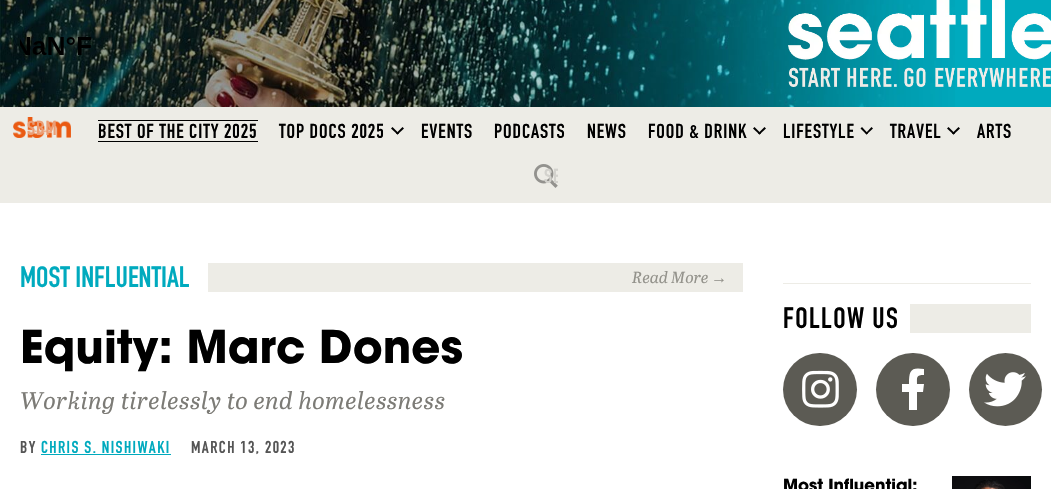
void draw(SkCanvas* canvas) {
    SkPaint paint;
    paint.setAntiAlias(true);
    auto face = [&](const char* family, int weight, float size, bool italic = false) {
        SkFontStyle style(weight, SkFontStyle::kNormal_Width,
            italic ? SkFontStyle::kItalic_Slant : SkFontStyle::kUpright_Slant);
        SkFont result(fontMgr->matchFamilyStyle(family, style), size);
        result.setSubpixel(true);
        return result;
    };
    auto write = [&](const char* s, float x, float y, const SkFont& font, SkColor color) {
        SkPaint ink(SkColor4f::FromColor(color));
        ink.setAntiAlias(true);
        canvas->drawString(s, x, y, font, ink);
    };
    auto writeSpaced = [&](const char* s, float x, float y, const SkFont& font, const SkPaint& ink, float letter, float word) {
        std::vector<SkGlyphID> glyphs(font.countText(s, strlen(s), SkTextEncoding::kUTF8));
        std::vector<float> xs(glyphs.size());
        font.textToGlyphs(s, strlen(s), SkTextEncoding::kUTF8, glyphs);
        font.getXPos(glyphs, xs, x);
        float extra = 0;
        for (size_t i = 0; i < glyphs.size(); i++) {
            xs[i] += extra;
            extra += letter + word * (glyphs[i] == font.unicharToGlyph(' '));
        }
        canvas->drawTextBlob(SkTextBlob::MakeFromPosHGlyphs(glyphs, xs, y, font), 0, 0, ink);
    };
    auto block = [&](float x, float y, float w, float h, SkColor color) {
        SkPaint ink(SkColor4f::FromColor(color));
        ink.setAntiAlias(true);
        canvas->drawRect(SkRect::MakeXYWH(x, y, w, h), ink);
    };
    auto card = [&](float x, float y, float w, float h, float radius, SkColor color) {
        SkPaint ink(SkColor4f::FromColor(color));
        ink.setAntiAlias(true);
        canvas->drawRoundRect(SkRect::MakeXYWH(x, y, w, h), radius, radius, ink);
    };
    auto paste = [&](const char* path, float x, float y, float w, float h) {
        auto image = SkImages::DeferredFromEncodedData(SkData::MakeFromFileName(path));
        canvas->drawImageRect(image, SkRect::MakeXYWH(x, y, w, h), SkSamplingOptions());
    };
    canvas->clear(SK_ColorWHITE);
    block(955, 0, 96, 107, SkColorSetRGB(0, 170, 190));
    paste("pic1.png", 0, 0, 955, 107);
    paste("pic2.png", 20, 37, 72, 18);
    paste("pic3.png", 788, 0, 263, 87);
    block(0, 107, 1051, 96, SkColorSetRGB(237, 236, 230));
    paste("pic4.png", 13, 117, 58, 21);
    auto kFont1 = face("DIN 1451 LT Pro", 400, 20);
    paint.setColor(SkColorSetRGB(235, 157, 116));
    writeSpaced("SBM", 27, 135, kFont1, paint, 0.9f, 0);
    block(98, 120, 160, 1, SK_ColorBLACK);
    block(98, 141, 160, 1, SK_ColorBLACK);
    paint.setColor(SK_ColorBLACK);
    writeSpaced("BEST OF THE CITY 2025", 98, 138, kFont1, paint, 0.9f, 0);
    writeSpaced("TOP DOCS 2025", 279, 138, kFont1, paint, 0.9f, 0);
    canvas->drawPath(SkPathBuilder().moveTo(402.5f, 127).lineTo(404, 128.5f).lineTo(397.5f, 134.5f).lineTo(396, 133.5f).close().detach(), paint);
    canvas->drawPath(SkPathBuilder().moveTo(392.5f, 127).lineTo(399, 133.5f).lineTo(397.5f, 134.5f).lineTo(391, 128.5f).close().detach(), paint);
    writeSpaced("EVENTS", 421, 138, kFont1, paint, 0.9f, 0);
    writeSpaced("PODCASTS", 494, 138, kFont1, paint, 0.9f, 0);
    writeSpaced("NEWS", 587, 138, kFont1, paint, 0.9f, 0);
    writeSpaced("FOOD & DRINK", 648, 138, kFont1, paint, 0.9f, 0);
    canvas->drawPath(SkPathBuilder().moveTo(764.5f, 127).lineTo(766, 128.5f).lineTo(759.5f, 134.5f).lineTo(758, 133.5f).close().detach(), paint);
    canvas->drawPath(SkPathBuilder().moveTo(754.5f, 127).lineTo(761, 133.5f).lineTo(759.5f, 134.5f).lineTo(753, 128.5f).close().detach(), paint);
    writeSpaced("LIFESTYLE", 783, 138, kFont1, paint, 0.9f, 0);
    canvas->drawPath(SkPathBuilder().moveTo(871.5f, 127).lineTo(873, 128.5f).lineTo(866.5f, 134.5f).lineTo(865.5f, 133.5f).close().detach(), paint);
    canvas->drawPath(SkPathBuilder().moveTo(862, 127).lineTo(868, 133.5f).lineTo(866.5f, 134.5f).lineTo(860.5f, 128.5f).close().detach(), paint);
    writeSpaced("TRAVEL", 890, 138, kFont1, paint, 0.9f, 0);
    canvas->drawPath(SkPathBuilder().moveTo(958.5f, 127).lineTo(960, 128.5f).lineTo(953.5f, 134.5f).lineTo(952, 133.5f).close().detach(), paint);
    canvas->drawPath(SkPathBuilder().moveTo(948.5f, 127).lineTo(955, 133.5f).lineTo(953.5f, 134.5f).lineTo(947, 128.5f).close().detach(), paint);
    writeSpaced("ARTS", 977, 138, kFont1, paint, 0.9f, 0);
    paste("pic5.png", 534, 164, 24, 24);
    canvas->save();
    canvas->clipRect(SkRect::MakeXYWH(534, 152, 24, 48));
    paint.setColor(SkColorSetRGB(211, 210, 205));
    writeSpaced("SE", 544, 183, kFont1, paint, 0.9f, 0);
    canvas->restore();
    auto kFont2 = face("DIN 1451 LT Pro", 400, 29);
    write("MOST INFLUENTIAL", 20, 287, kFont2, SkColorSetRGB(0, 170, 190));
    block(208, 263, 535, 29, SkColorSetRGB(237, 236, 230));
    auto kFont3 = face("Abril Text", 400, 16, true);
    write("Read More", 632, 283, kFont3, SkColorSetRGB(147, 146, 139));
    auto kFont4 = face("Liberation Serif", 400, 16, true);
    write("→", 711, 283, kFont4, SkColorSetRGB(147, 146, 139));
    auto kFont5 = face("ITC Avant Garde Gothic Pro", 700, 45.1f);
    write("Equity: Marc Dones", 20, 363, kFont5, SK_ColorBLACK);
    auto kFont6 = face("Abril Text", 400, 24, true);
    paint.setColor(SkColorSetRGB(124, 123, 118));
    writeSpaced("Working tirelessly to end homelessness", 20, 409, kFont6, paint, 0.4f, 0);
    auto kFont7 = face("DIN 1451 LT Pro", 400, 17);
    paint.setColor(SkColorSetRGB(85, 85, 85));
    writeSpaced("BY", 20, 453, kFont7, paint, 1.4f, 0);
    paint.setColor(SkColorSetRGB(0, 170, 190));
    writeSpaced("CHRIS S. NISHIWAKI", 41, 453, kFont7, paint, 1.4f, 0);
    block(41, 454, 130, 1, SkColorSetRGB(0, 170, 190));
    paint.setColor(SkColorSetRGB(85, 85, 85));
    writeSpaced("MARCH 13, 2023", 191, 453, kFont7, paint, 1.4f, 0);
    block(783, 283, 248, 1, SkColorSetRGB(237, 236, 230));
    paint.setColor(SK_ColorBLACK);
    writeSpaced("FOLLOW US", 783, 328, kFont2, paint, 1.4f, 0);
    block(910, 304, 121, 29, SkColorSetRGB(237, 236, 230));
    card(783, 353, 74, 73, 36.5f, SkColorSetRGB(92, 91, 84));
    paste("pic6.png", 802, 370, 37, 38);
    card(876, 353, 74, 73, 36.5f, SkColorSetRGB(92, 91, 84));
    paint.setColor(SK_ColorWHITE);
    canvas->drawPath(SkPathBuilder().moveTo(923, 392).lineTo(917, 392).lineTo(917, 410).lineTo(909, 410).lineTo(909, 392).lineTo(902, 392).lineTo(902, 384).lineTo(909, 384).cubicTo(909, 370, 911, 367, 924, 369).lineTo(924, 375).cubicTo(916, 375, 917, 377, 917, 384).lineTo(924, 384).close().detach(), paint);
    paint.setColor(SkColorSetRGB(92, 91, 84));
    canvas->drawCircle(1005.5f, 389.5f, 36.5f, paint);
    paste("pic7.png", 984, 372, 42, 35);
    auto kFont8 = face("ITC Avant Garde Gothic Pro", 700, 16.5f);
    write("Most Influential:", 783, 491, kFont8, SK_ColorBLACK);
    paste("pic8.png", 952, 476, 79, 13);
}
